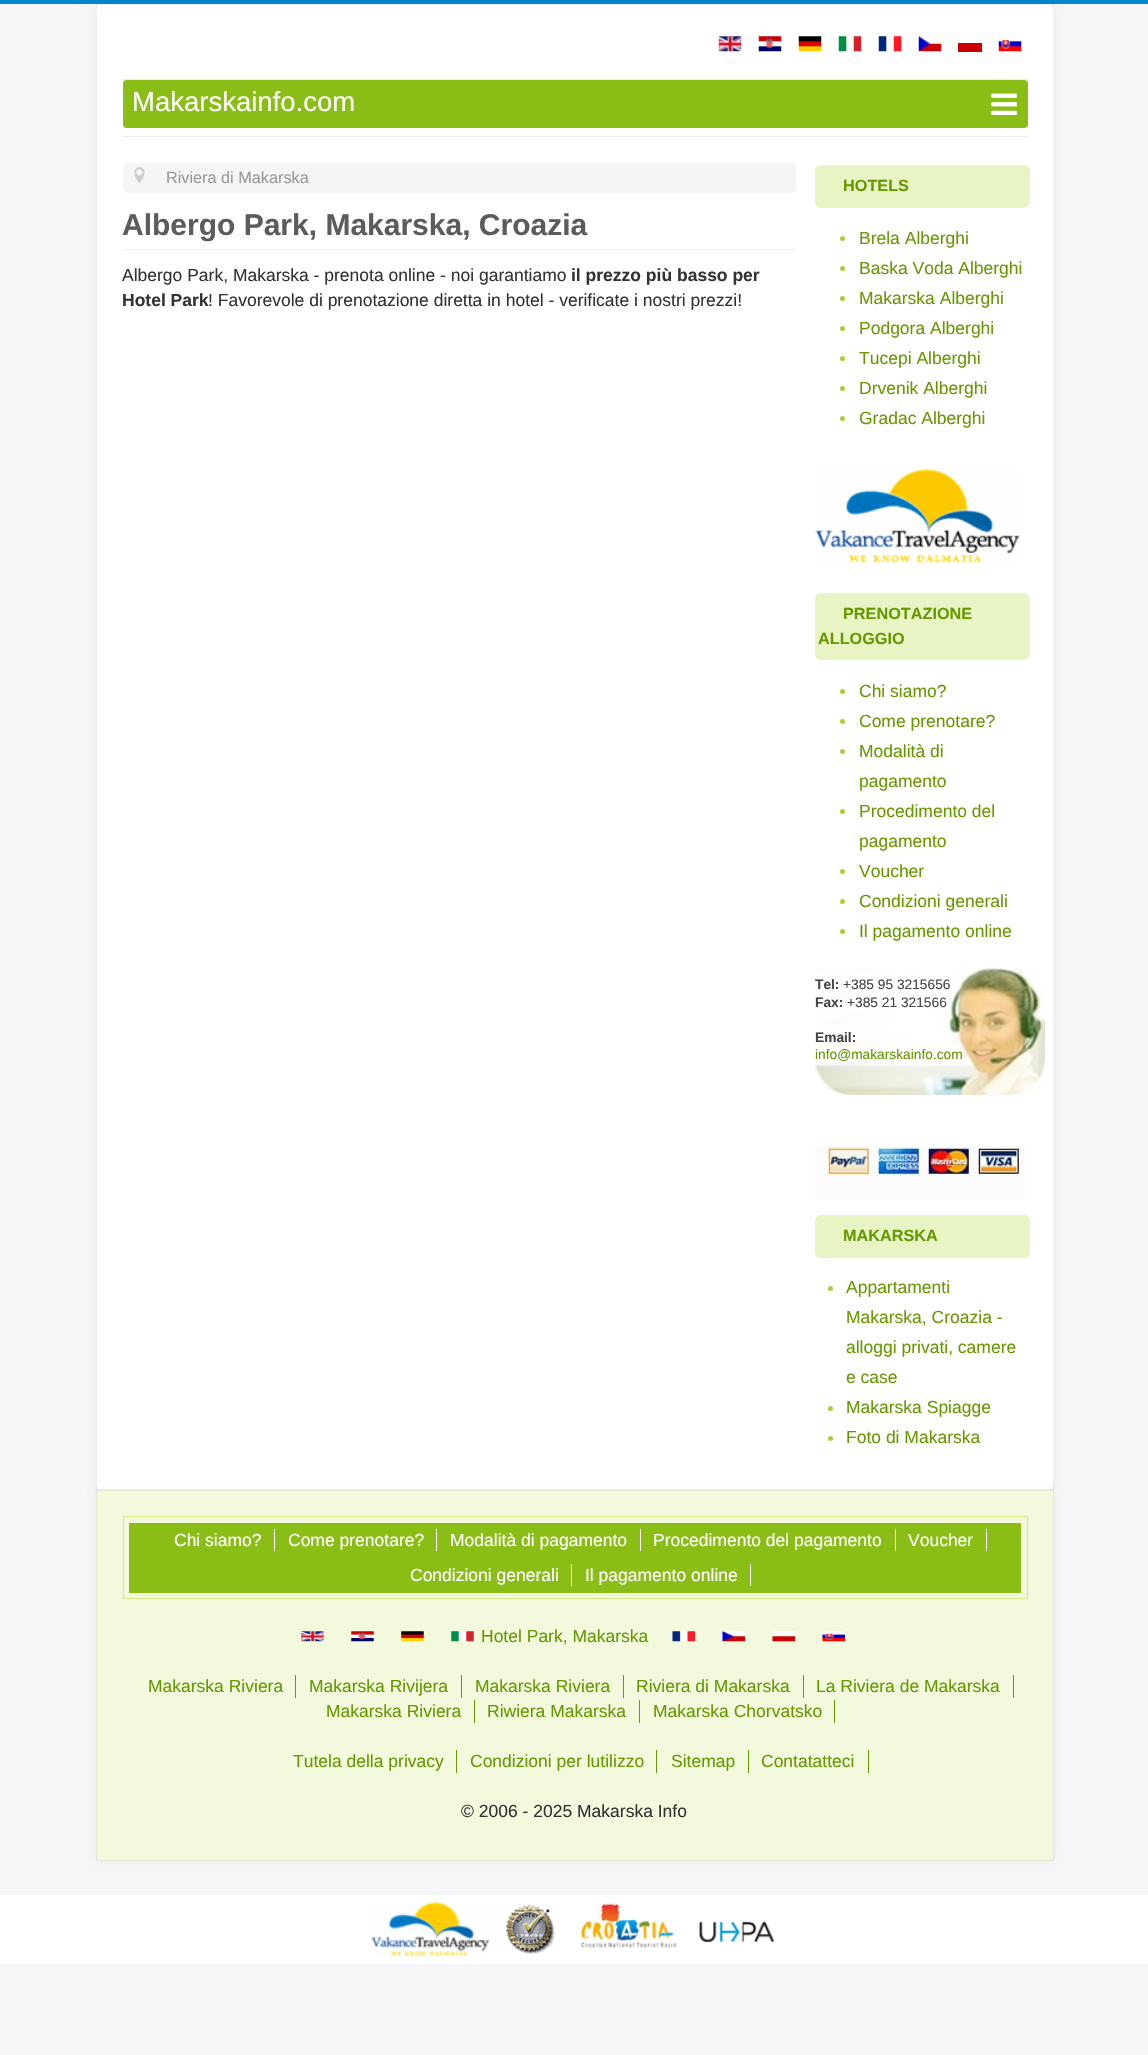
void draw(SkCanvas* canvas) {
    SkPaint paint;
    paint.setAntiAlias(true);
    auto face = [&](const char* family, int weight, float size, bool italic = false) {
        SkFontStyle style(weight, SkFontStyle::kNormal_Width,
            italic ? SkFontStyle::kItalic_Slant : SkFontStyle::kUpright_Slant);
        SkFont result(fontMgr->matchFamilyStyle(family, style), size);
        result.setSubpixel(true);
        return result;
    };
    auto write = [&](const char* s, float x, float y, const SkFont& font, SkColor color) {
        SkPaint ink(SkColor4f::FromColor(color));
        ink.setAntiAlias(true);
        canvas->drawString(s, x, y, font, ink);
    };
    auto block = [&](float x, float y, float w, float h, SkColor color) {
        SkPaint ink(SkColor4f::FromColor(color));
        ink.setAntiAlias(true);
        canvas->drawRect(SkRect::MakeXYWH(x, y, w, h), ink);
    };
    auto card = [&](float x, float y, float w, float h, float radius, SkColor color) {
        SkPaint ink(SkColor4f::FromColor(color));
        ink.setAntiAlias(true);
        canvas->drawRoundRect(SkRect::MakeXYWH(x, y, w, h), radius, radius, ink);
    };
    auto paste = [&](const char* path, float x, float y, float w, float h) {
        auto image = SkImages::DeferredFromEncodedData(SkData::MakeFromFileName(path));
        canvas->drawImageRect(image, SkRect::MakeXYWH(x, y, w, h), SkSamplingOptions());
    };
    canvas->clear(SkColorSetRGB(244, 246, 247));
    block(0, 0, 1148, 4, SkColorSetRGB(0, 136, 204));
    paint.setColor(SkColorSetARGB(13, 0, 0, 0));
    paint.setMaskFilter(SkMaskFilter::MakeBlur(kNormal_SkBlurStyle, 4));
    canvas->drawRoundRect(SkRect::MakeXYWH(96, 4, 958, 1486), 5, 5, paint);
    paint.setMaskFilter(nullptr);
    card(96, 4, 958, 1486, 5, SK_ColorWHITE);
    paint.setStyle(SkPaint::kStroke_Style);
    paint.setStrokeWidth(1);
    paint.setColor(SkColorSetARGB(15, 0, 0, 0));
    canvas->drawRect(SkRect::MakeXYWH(96.5f, 4.5f, 957, 1485), paint);
    paste("pic1.png", 718, 36, 24, 16);
    paste("pic2.png", 758, 36, 24, 16);
    paste("pic3.png", 798, 36, 24, 16);
    paste("pic4.png", 838, 36, 24, 16);
    paste("pic5.png", 878, 36, 24, 16);
    paste("pic6.png", 918, 36, 24, 16);
    block(958, 43, 24, 9, SkColorSetRGB(204, 0, 0));
    paste("pic7.png", 998, 39, 24, 13);
    block(123, 79, 905, 1, SkColorSetRGB(236, 236, 236));
    block(123, 136, 905, 1, SkColorSetRGB(236, 236, 236));
    card(123, 80, 905, 48, 4, SkColorSetRGB(138, 189, 22));
    auto kFont1 = face("Liberation Sans", 400, 27.5f);
    write("Makarskainfo.com", 132, 111, kFont1, SK_ColorWHITE);
    paste("pic8.png", 991, 93, 26, 22);
    card(123, 163, 673, 30, 5, SkColorSetRGB(245, 245, 245));
    paste("pic9.png", 134, 167, 11, 17);
    auto kFont2 = face("Liberation Sans", 400, 16.25f);
    write("Riviera di Makarska", 166, 183, kFont2, SkColorSetRGB(153, 153, 153));
    block(123, 249, 673, 1, SkColorSetRGB(238, 238, 238));
    auto kFont3 = face("Liberation Sans", 700, 30);
    write("Albergo Park, Makarska, Croazia", 122, 235, kFont3, SkColorSetRGB(93, 92, 92));
    auto kFont4 = face("Liberation Sans", 400, 17.5f);
    write("Albergo Park, Makarska - prenota online - noi garantiamo", 122, 281, kFont4, SkColorSetRGB(51, 51, 51));
    auto kFont5 = face("Liberation Sans", 700, 17.5f);
    write("il prezzo più basso per", 571, 281, kFont5, SkColorSetRGB(51, 51, 51));
    write("Hotel Park", 122, 306, kFont5, SkColorSetRGB(51, 51, 51));
    write("! Favorevole di prenotazione diretta in hotel - verificate i nostri prezzi!", 208, 306, kFont4, SkColorSetRGB(51, 51, 51));
    card(815, 165, 215, 43, 6, SkColorSetRGB(233, 244, 196));
    auto kFont6 = face("Liberation Sans", 700, 16.25f);
    write("HOTELS", 843, 191, kFont6, SkColorSetRGB(102, 153, 0));
    paint.setStyle(SkPaint::kFill_Style);
    paint.setColor(SkColorSetRGB(168, 208, 58));
    canvas->drawCircle(842.5f, 238.5f, 2.5f, paint);
    write("Brela Alberghi", 859, 244, kFont4, SkColorSetRGB(102, 153, 0));
    canvas->drawCircle(842.5f, 268.5f, 2.5f, paint);
    write("Baska Voda Alberghi", 859, 274, kFont4, SkColorSetRGB(102, 153, 0));
    canvas->drawCircle(842.5f, 298.5f, 2.5f, paint);
    write("Makarska Alberghi", 859, 304, kFont4, SkColorSetRGB(102, 153, 0));
    canvas->drawCircle(842.5f, 328.5f, 2.5f, paint);
    write("Podgora Alberghi", 859, 334, kFont4, SkColorSetRGB(102, 153, 0));
    canvas->drawCircle(842.5f, 358.5f, 2.5f, paint);
    write("Tucepi Alberghi", 859, 364, kFont4, SkColorSetRGB(102, 153, 0));
    canvas->drawCircle(842.5f, 388.5f, 2.5f, paint);
    write("Drvenik Alberghi", 859, 394, kFont4, SkColorSetRGB(102, 153, 0));
    canvas->drawCircle(842.5f, 418.5f, 2.5f, paint);
    write("Gradac Alberghi", 859, 424, kFont4, SkColorSetRGB(102, 153, 0));
    paste("pic10.png", 815, 468, 206, 95);
    card(815, 593, 215, 67, 6, SkColorSetRGB(233, 244, 196));
    write("PRENOTAZIONE", 843, 619, kFont6, SkColorSetRGB(102, 153, 0));
    write("ALLOGGIO", 818, 644, kFont6, SkColorSetRGB(102, 153, 0));
    canvas->drawCircle(842.5f, 691.5f, 2.5f, paint);
    write("Chi siamo?", 859, 697, kFont4, SkColorSetRGB(102, 153, 0));
    canvas->drawCircle(842.5f, 721.5f, 2.5f, paint);
    write("Come prenotare?", 859, 727, kFont4, SkColorSetRGB(102, 153, 0));
    canvas->drawCircle(842.5f, 751.5f, 2.5f, paint);
    write("Modalità di", 859, 757, kFont4, SkColorSetRGB(102, 153, 0));
    write("pagamento", 859, 787, kFont4, SkColorSetRGB(102, 153, 0));
    canvas->drawCircle(842.5f, 811.5f, 2.5f, paint);
    write("Procedimento del", 859, 817, kFont4, SkColorSetRGB(102, 153, 0));
    write("pagamento", 859, 847, kFont4, SkColorSetRGB(102, 153, 0));
    canvas->drawCircle(842.5f, 871.5f, 2.5f, paint);
    write("Voucher", 859, 877, kFont4, SkColorSetRGB(102, 153, 0));
    canvas->drawCircle(842.5f, 901.5f, 2.5f, paint);
    write("Condizioni generali", 859, 907, kFont4, SkColorSetRGB(102, 153, 0));
    canvas->drawCircle(842.5f, 931.5f, 2.5f, paint);
    write("Il pagamento online", 859, 937, kFont4, SkColorSetRGB(102, 153, 0));
    paste("pic11.png", 815, 967, 230, 128);
    auto kFont7 = face("Liberation Sans", 700, 13.75f);
    write("Tel:", 815, 989, kFont7, SkColorSetRGB(69, 69, 69));
    auto kFont8 = face("Liberation Sans", 400, 13.75f);
    write("+385 95 3215656", 843, 989, kFont8, SkColorSetRGB(69, 69, 69));
    write("Fax:", 815, 1007, kFont7, SkColorSetRGB(69, 69, 69));
    write("+385 21 321566", 847, 1007, kFont8, SkColorSetRGB(69, 69, 69));
    write("Email:", 815, 1042, kFont7, SkColorSetRGB(69, 69, 69));
    write("info@makarskainfo.com", 815, 1059, kFont8, SkColorSetRGB(102, 153, 0));
    block(815, 1146, 210, 54, SkColorSetRGB(251, 251, 251));
    paste("pic12.png", 827, 1147, 192, 28);
    card(815, 1215, 215, 43, 6, SkColorSetRGB(233, 244, 196));
    write("MAKARSKA", 843, 1241, kFont6, SkColorSetRGB(102, 153, 0));
    canvas->drawCircle(830.5f, 1288.5f, 2.5f, paint);
    write("Appartamenti", 846, 1293, kFont4, SkColorSetRGB(102, 153, 0));
    write("Makarska, Croazia -", 846, 1323, kFont4, SkColorSetRGB(102, 153, 0));
    write("alloggi privati, camere", 846, 1353, kFont4, SkColorSetRGB(102, 153, 0));
    write("e case", 846, 1383, kFont4, SkColorSetRGB(102, 153, 0));
    canvas->drawCircle(830.5f, 1408.5f, 2.5f, paint);
    write("Makarska Spiagge", 846, 1413, kFont4, SkColorSetRGB(102, 153, 0));
    canvas->drawCircle(830.5f, 1438.5f, 2.5f, paint);
    write("Foto di Makarska", 846, 1443, kFont4, SkColorSetRGB(102, 153, 0));
    paint.setColor(SkColorSetARGB(13, 0, 0, 0));
    paint.setMaskFilter(SkMaskFilter::MakeBlur(kNormal_SkBlurStyle, 4));
    canvas->drawRoundRect(SkRect::MakeXYWH(96, 1490, 958, 371), 5, 5, paint);
    paint.setMaskFilter(nullptr);
    card(96, 1490, 958, 371, 5, SkColorSetRGB(242, 249, 221));
    paint.setStyle(SkPaint::kStroke_Style);
    paint.setColor(SkColorSetARGB(15, 0, 0, 0));
    canvas->drawRect(SkRect::MakeXYWH(96.5f, 1490.5f, 957, 370), paint);
    paint.setColor(SkColorSetRGB(210, 233, 135));
    canvas->drawRect(SkRect::MakeXYWH(123.5f, 1516.5f, 904, 82), paint);
    block(129, 1523, 892, 70, SkColorSetRGB(138, 189, 22));
    block(274, 1529, 1, 22, SK_ColorWHITE);
    write("Chi siamo?", 174, 1546, kFont4, SK_ColorWHITE);
    block(436, 1529, 1, 22, SK_ColorWHITE);
    write("Come prenotare?", 288, 1546, kFont4, SK_ColorWHITE);
    block(640, 1529, 1, 22, SK_ColorWHITE);
    write("Modalità di pagamento", 450, 1546, kFont4, SK_ColorWHITE);
    block(895, 1529, 1, 22, SK_ColorWHITE);
    write("Procedimento del pagamento", 653, 1546, kFont4, SK_ColorWHITE);
    block(986, 1529, 1, 22, SK_ColorWHITE);
    write("Voucher", 908, 1546, kFont4, SK_ColorWHITE);
    block(571, 1564, 1, 22, SK_ColorWHITE);
    write("Condizioni generali", 410, 1581, kFont4, SK_ColorWHITE);
    block(750, 1564, 1, 22, SK_ColorWHITE);
    write("Il pagamento online", 585, 1581, kFont4, SK_ColorWHITE);
    paste("pic13.png", 301, 1631, 23, 11);
    paste("pic14.png", 351, 1631, 23, 11);
    paste("pic15.png", 401, 1631, 23, 11);
    paste("pic16.png", 451, 1631, 23, 11);
    write("Hotel Park, Makarska", 481, 1642, kFont4, SkColorSetRGB(102, 153, 0));
    paste("pic17.png", 672, 1631, 23, 11);
    paste("pic18.png", 722, 1631, 23, 11);
    paste("pic19.png", 772, 1631, 23, 11);
    paste("pic20.png", 822, 1631, 23, 11);
    block(295, 1675, 1, 23, SkColorSetRGB(102, 153, 0));
    write("Makarska Riviera", 148, 1692, kFont4, SkColorSetRGB(102, 153, 0));
    block(461, 1675, 1, 23, SkColorSetRGB(102, 153, 0));
    write("Makarska Rivijera", 309, 1692, kFont4, SkColorSetRGB(102, 153, 0));
    block(623, 1675, 1, 23, SkColorSetRGB(102, 153, 0));
    write("Makarska Riviera", 475, 1692, kFont4, SkColorSetRGB(102, 153, 0));
    block(803, 1675, 1, 23, SkColorSetRGB(102, 153, 0));
    write("Riviera di Makarska", 636, 1692, kFont4, SkColorSetRGB(102, 153, 0));
    block(1013, 1675, 1, 23, SkColorSetRGB(102, 153, 0));
    write("La Riviera de Makarska", 816, 1692, kFont4, SkColorSetRGB(102, 153, 0));
    block(474, 1700, 1, 23, SkColorSetRGB(102, 153, 0));
    write("Makarska Riviera", 326, 1717, kFont4, SkColorSetRGB(102, 153, 0));
    block(639, 1700, 1, 23, SkColorSetRGB(102, 153, 0));
    write("Riwiera Makarska", 487, 1717, kFont4, SkColorSetRGB(102, 153, 0));
    block(834, 1700, 1, 23, SkColorSetRGB(102, 153, 0));
    write("Makarska Chorvatsko", 653, 1717, kFont4, SkColorSetRGB(102, 153, 0));
    block(456, 1750, 1, 23, SkColorSetRGB(102, 153, 0));
    write("Tutela della privacy", 293, 1767, kFont4, SkColorSetRGB(102, 153, 0));
    block(656, 1750, 1, 23, SkColorSetRGB(102, 153, 0));
    write("Condizioni per lutilizzo", 470, 1767, kFont4, SkColorSetRGB(102, 153, 0));
    block(748, 1750, 1, 23, SkColorSetRGB(102, 153, 0));
    write("Sitemap", 671, 1767, kFont4, SkColorSetRGB(102, 153, 0));
    block(868, 1750, 1, 23, SkColorSetRGB(102, 153, 0));
    write("Contatatteci", 761, 1767, kFont4, SkColorSetRGB(102, 153, 0));
    write("© 2006 - 2025 Makarska Info", 461, 1817, kFont4, SkColorSetRGB(51, 51, 51));
    block(0, 1895, 1148, 69, SK_ColorWHITE);
    paste("pic21.png", 371, 1902, 119, 55);
    paste("pic22.png", 506, 1905, 49, 49);
    paste("pic23.png", 580, 1903, 97, 45);
    paste("pic24.png", 698, 1921, 77, 22);
}
